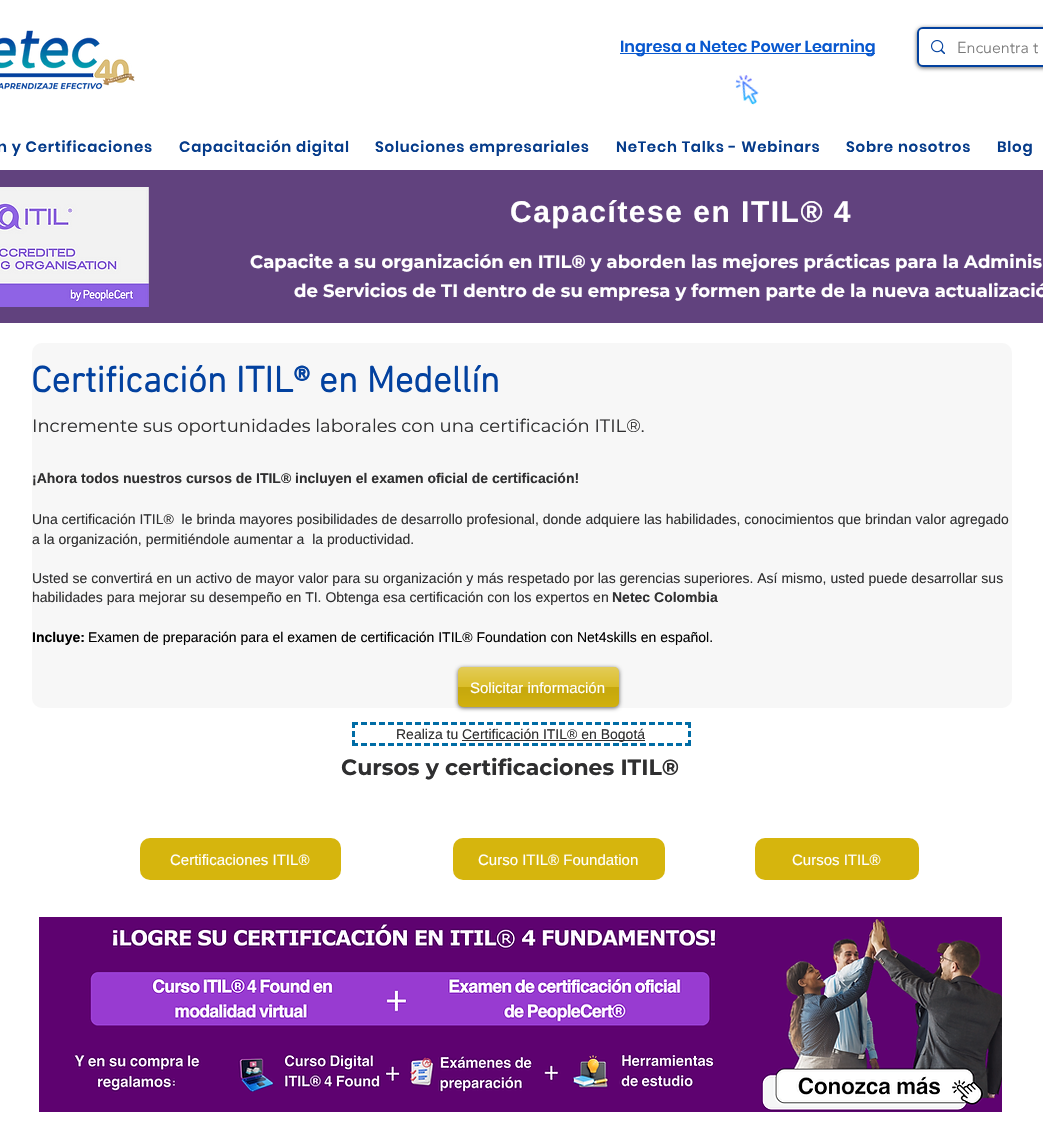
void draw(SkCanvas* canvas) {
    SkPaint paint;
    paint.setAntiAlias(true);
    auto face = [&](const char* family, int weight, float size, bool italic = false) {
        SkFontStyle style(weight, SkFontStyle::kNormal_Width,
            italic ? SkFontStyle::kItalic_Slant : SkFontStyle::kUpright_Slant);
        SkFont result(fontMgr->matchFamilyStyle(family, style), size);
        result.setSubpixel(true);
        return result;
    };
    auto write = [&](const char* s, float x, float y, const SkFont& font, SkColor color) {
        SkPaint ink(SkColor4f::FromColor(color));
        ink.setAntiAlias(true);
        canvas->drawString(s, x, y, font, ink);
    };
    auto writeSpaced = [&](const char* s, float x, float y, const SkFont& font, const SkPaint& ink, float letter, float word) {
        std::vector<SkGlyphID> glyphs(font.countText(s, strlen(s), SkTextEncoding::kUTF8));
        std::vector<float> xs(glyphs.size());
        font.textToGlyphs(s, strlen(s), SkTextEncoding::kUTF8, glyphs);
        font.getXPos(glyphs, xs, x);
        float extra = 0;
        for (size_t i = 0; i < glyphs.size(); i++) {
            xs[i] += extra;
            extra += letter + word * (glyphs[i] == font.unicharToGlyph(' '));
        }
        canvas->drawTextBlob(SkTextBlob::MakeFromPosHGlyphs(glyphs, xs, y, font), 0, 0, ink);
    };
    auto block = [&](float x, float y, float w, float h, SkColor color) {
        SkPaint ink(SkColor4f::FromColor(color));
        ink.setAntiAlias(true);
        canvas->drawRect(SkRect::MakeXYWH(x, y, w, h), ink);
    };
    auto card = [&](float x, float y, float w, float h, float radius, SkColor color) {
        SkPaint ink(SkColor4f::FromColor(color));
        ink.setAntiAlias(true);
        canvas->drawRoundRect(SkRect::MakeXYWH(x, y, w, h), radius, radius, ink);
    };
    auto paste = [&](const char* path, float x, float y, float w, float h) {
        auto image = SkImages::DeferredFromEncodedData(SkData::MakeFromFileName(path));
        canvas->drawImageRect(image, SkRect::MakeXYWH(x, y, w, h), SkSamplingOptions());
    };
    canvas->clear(SK_ColorWHITE);
    paste("pic1.png", 0, 30, 135, 60);
    block(620, 53, 255, 1, SkColorSetRGB(8, 88, 207));
    auto kFont1 = face("Poppins", 600, 16);
    write("Ingresa a Netec Power Learning", 620, 52, kFont1, SkColorSetRGB(8, 88, 207));
    paint.setColor(SkColorSetARGB(153, 0, 0, 0));
    paint.setMaskFilter(SkMaskFilter::MakeBlur(kNormal_SkBlurStyle, 2));
    canvas->drawRoundRect(SkRect::MakeXYWH(917, 28, 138, 40), 6, 6, paint);
    paint.setMaskFilter(nullptr);
    paint.setStyle(SkPaint::kStroke_Style);
    paint.setStrokeWidth(2);
    paint.setColor(SkColorSetRGB(2, 65, 159));
    canvas->drawRoundRect(SkRect::MakeXYWH(918, 28, 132, 38), 5, 5, paint);
    card(919, 29, 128, 36, 4, SK_ColorWHITE);
    paste("pic2.png", 931, 40, 14, 14);
    auto kFont2 = face("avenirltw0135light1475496", 300, 16);
    write("Encuentra t", 957, 53, kFont2, SkColorSetRGB(120, 120, 120));
    paste("pic3.png", 735, 75, 24, 30);
    auto kFont3 = face("Poppins", 600, 15);
    paint.setStyle(SkPaint::kFill_Style);
    paint.setColor(SkColorSetRGB(5, 59, 138));
    writeSpaced("n y Certificaciones", -3, 152, kFont3, paint, 0.75f, 0);
    writeSpaced("Capacitación digital", 179, 152, kFont3, paint, 0.75f, 0);
    writeSpaced("Soluciones empresariales", 375, 152, kFont3, paint, 0.75f, 0);
    writeSpaced("NeTech Talks - Webinars", 616, 152, kFont3, paint, 0.75f, 0);
    writeSpaced("Sobre nosotros", 846, 152, kFont3, paint, 0.75f, 0);
    writeSpaced("Blog", 997, 152, kFont3, paint, 0.75f, 0);
    block(0, 170, 1043, 153, SkColorSetRGB(97, 66, 126));
    paste("pic4.png", 0, 187, 149, 120);
    auto kFont4 = face("Liberation Sans", 700, 30);
    paint.setColor(SK_ColorWHITE);
    writeSpaced("Capacítese en ITIL® 4", 510, 222, kFont4, paint, 1.5f, 0);
    auto kFont5 = face("Montserrat", 700, 18);
    write("Capacite a su organización en ITIL® y aborden las mejores prácticas para la Adminis", 250, 268, kFont5, SK_ColorWHITE);
    write("de Servicios de TI dentro de su empresa y formen parte de la nueva actualizació", 294, 297, kFont5, SK_ColorWHITE);
    card(32, 343, 980, 365, 10, SkColorSetRGB(247, 247, 247));
    auto kFont6 = face("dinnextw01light", 700, 37);
    write("Certificación ITIL® en Medellín", 31, 392, kFont6, SkColorSetRGB(2, 65, 159));
    auto kFont7 = face("Montserrat", 400, 18);
    write("Incremente sus oportunidades laborales con una certificación ITIL®.", 32, 432, kFont7, SkColorSetRGB(47, 47, 48));
    auto kFont8 = face("Liberation Sans", 700, 14);
    write("¡Ahora todos nuestros cursos de ITIL® incluyen el examen oficial de certificación!", 32, 483, kFont8, SkColorSetRGB(47, 47, 48));
    auto kFont9 = face("Liberation Sans", 400, 14);
    write("Una certificación ITIL®  le brinda mayores posibilidades de desarrollo profesional, donde adquiere las habilidades, conocimientos que brindan valor agregado", 32, 524, kFont9, SkColorSetRGB(47, 47, 48));
    write("a la organización, permitiéndole aumentar a  la productividad.", 32, 544, kFont9, SkColorSetRGB(47, 47, 48));
    write("Usted se convertirá en un activo de mayor valor para su organización y más respetado por las gerencias superiores. Así mismo, usted puede desarrollar sus", 32, 583, kFont9, SkColorSetRGB(47, 47, 48));
    write("habilidades para mejorar su desempeño en TI. Obtenga esa certificación con los expertos en", 32, 602, kFont9, SkColorSetRGB(47, 47, 48));
    write("Netec Colombia", 612, 602, kFont8, SkColorSetRGB(47, 47, 48));
    write("Incluye:", 32, 642, kFont8, SK_ColorBLACK);
    write("Examen de preparación para el examen de certificación ITIL® Foundation con Net4skills en español.", 88, 642, kFont9, SK_ColorBLACK);
    paint.setColor(SkColorSetARGB(153, 0, 0, 0));
    paint.setMaskFilter(SkMaskFilter::MakeBlur(kNormal_SkBlurStyle, 2));
    canvas->drawRoundRect(SkRect::MakeXYWH(458, 668, 161, 40), 5, 5, paint);
    paint.setMaskFilter(nullptr);
    card(458, 667, 161, 40, 5, SkColorSetRGB(214, 181, 13));
    paste("pic5.png", 458, 667, 161, 40);
    auto kFont10 = face("Liberation Sans", 400, 15);
    write("Solicitar información", 470, 693, kFont10, SK_ColorWHITE);
    paint.setStyle(SkPaint::kStroke_Style);
    paint.setStrokeWidth(3);
    paint.setColor(SkColorSetRGB(0, 108, 165));
    paint.setPathEffect(SkDashPathEffect::Make({{6, 3}}, 0));
    canvas->drawPath(SkPathBuilder().moveTo(352, 723.5f).lineTo(691, 723.5f).detach(), paint);
    paint.setPathEffect(nullptr);
    canvas->drawPath(SkPathBuilder().moveTo(689.5f, 722).lineTo(689.5f, 728).moveTo(689.5f, 731).lineTo(689.5f, 737).moveTo(689.5f, 740).lineTo(689.5f, 746).detach(), paint);
    paint.setPathEffect(SkDashPathEffect::Make({{6, 3}}, 0));
    canvas->drawPath(SkPathBuilder().moveTo(352, 744.5f).lineTo(691, 744.5f).detach(), paint);
    paint.setPathEffect(nullptr);
    canvas->drawPath(SkPathBuilder().moveTo(353.5f, 722).lineTo(353.5f, 728).moveTo(353.5f, 731).lineTo(353.5f, 737).moveTo(353.5f, 740).lineTo(353.5f, 746).detach(), paint);
    write("Realiza tu", 396, 739, kFont9, SkColorSetRGB(47, 47, 48));
    block(462, 740, 183, 1, SkColorSetRGB(47, 47, 48));
    write("Certificación ITIL® en Bogotá", 462, 739, kFont9, SkColorSetRGB(47, 47, 48));
    auto kFont11 = face("Montserrat", 700, 22);
    write("Cursos y certificaciones ITIL®", 341, 775, kFont11, SkColorSetRGB(47, 47, 48));
    card(140, 838, 201, 42, 10, SkColorSetRGB(214, 181, 13));
    write("Certificaciones ITIL®", 170, 865, kFont10, SK_ColorWHITE);
    card(453, 838, 212, 42, 10, SkColorSetRGB(214, 181, 13));
    write("Curso ITIL® Foundation", 478, 865, kFont10, SK_ColorWHITE);
    card(755, 838, 164, 42, 10, SkColorSetRGB(214, 181, 13));
    write("Cursos ITIL®", 792, 865, kFont10, SK_ColorWHITE);
    paste("pic6.png", 39, 917, 963, 195);
}
